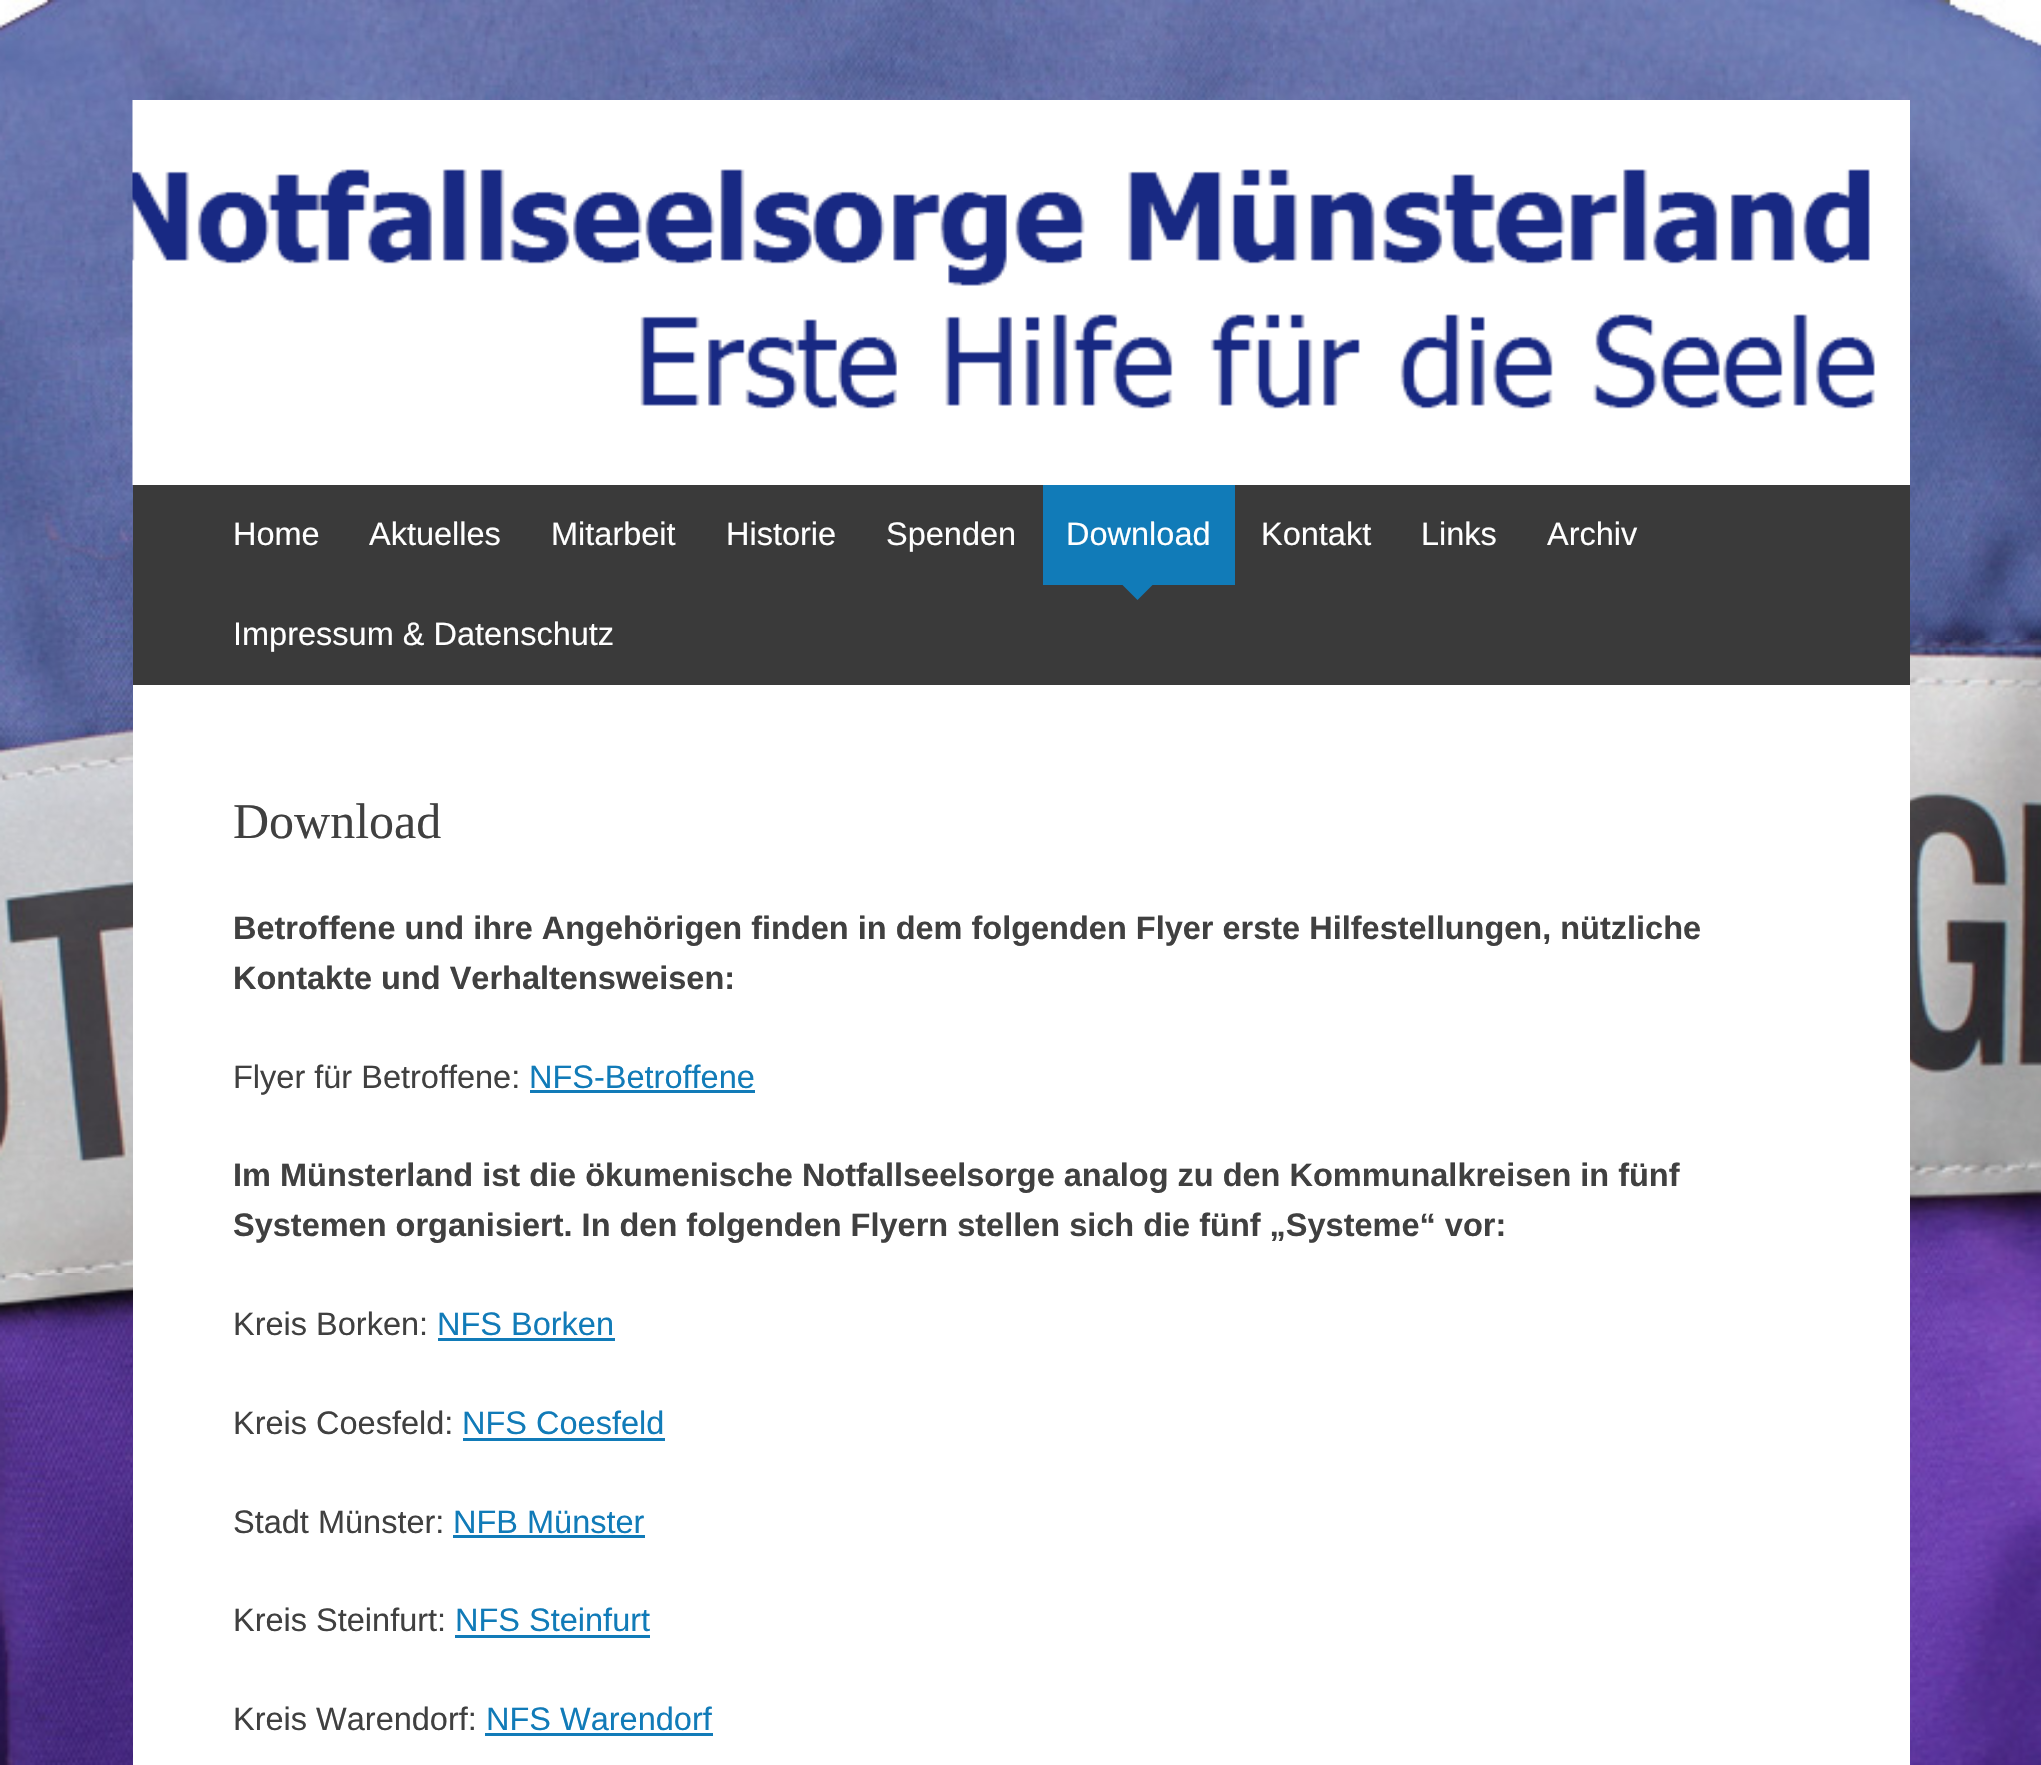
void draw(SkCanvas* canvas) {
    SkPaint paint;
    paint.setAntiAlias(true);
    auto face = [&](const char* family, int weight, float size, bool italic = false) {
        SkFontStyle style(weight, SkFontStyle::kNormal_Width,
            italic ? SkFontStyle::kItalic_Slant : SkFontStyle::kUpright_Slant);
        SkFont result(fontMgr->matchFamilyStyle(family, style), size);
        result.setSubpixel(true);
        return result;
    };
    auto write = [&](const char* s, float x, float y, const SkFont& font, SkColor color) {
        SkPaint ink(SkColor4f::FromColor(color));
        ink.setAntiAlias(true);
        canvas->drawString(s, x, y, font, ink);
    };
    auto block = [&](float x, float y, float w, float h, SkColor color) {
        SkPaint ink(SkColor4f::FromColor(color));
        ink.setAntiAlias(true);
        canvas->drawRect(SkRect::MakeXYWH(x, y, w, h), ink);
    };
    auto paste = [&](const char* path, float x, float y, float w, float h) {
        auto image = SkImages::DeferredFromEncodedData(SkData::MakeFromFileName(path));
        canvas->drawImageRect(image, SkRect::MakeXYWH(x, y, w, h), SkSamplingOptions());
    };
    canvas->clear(SK_ColorWHITE);
    paste("pic1.png", 0, 0, 2041, 1765);
    block(133, 100, 1777, 1665, SK_ColorWHITE);
    paste("pic2.png", 132, 100, 1743, 385);
    block(133, 485, 1777, 200, SkColorSetRGB(58, 58, 58));
    auto kFont1 = face("Liberation Sans", 400, 32.5f);
    write("Home", 233, 545, kFont1, SK_ColorWHITE);
    write("Aktuelles", 369, 545, kFont1, SK_ColorWHITE);
    write("Mitarbeit", 551, 545, kFont1, SK_ColorWHITE);
    write("Historie", 726, 545, kFont1, SK_ColorWHITE);
    write("Spenden", 886, 545, kFont1, SK_ColorWHITE);
    block(1043, 485, 192, 100, SkColorSetRGB(17, 123, 184));
    write("Download", 1066, 545, kFont1, SK_ColorWHITE);
    paint.setColor(SkColorSetRGB(17, 123, 184));
    canvas->drawPath(SkPathBuilder().moveTo(1122.5f, 585).lineTo(1152.5f, 585).lineTo(1137.5f, 600).close().detach(), paint);
    write("Kontakt", 1261, 545, kFont1, SK_ColorWHITE);
    write("Links", 1421, 545, kFont1, SK_ColorWHITE);
    write("Archiv", 1547, 545, kFont1, SK_ColorWHITE);
    write("Impressum & Datenschutz", 233, 645, kFont1, SK_ColorWHITE);
    auto kFont2 = face("Liberation Serif", 400, 50);
    write("Download", 233, 838, kFont2, SkColorSetRGB(64, 64, 64));
    auto kFont3 = face("Liberation Sans", 700, 32.5f);
    write("Betroffene und ihre Angehörigen finden in dem folgenden Flyer erste Hilfestellungen, nützliche", 233, 939, kFont3, SkColorSetRGB(64, 64, 64));
    write("Kontakte und Verhaltensweisen:", 233, 989, kFont3, SkColorSetRGB(64, 64, 64));
    write("Flyer für Betroffene:", 233, 1088, kFont1, SkColorSetRGB(64, 64, 64));
    write("NFS-Betroffene", 529, 1088, kFont1, SkColorSetRGB(17, 123, 184));
    block(530, 1090, 225, 3, SkColorSetRGB(17, 123, 184));
    write("Im Münsterland ist die ökumenische Notfallseelsorge analog zu den Kommunalkreisen in fünf", 233, 1186, kFont3, SkColorSetRGB(64, 64, 64));
    write("Systemen organisiert. In den folgenden Flyern stellen sich die fünf „Systeme“ vor:", 233, 1236, kFont3, SkColorSetRGB(64, 64, 64));
    write("Kreis Borken:", 233, 1335, kFont1, SkColorSetRGB(64, 64, 64));
    write("NFS Borken", 437, 1335, kFont1, SkColorSetRGB(17, 123, 184));
    block(438, 1338, 177, 3, SkColorSetRGB(17, 123, 184));
    write("Kreis Coesfeld:", 233, 1434, kFont1, SkColorSetRGB(64, 64, 64));
    write("NFS Coesfeld", 462, 1434, kFont1, SkColorSetRGB(17, 123, 184));
    block(463, 1438, 202, 3, SkColorSetRGB(17, 123, 184));
    write("Stadt Münster:", 233, 1533, kFont1, SkColorSetRGB(64, 64, 64));
    write("NFB Münster", 453, 1533, kFont1, SkColorSetRGB(17, 123, 184));
    block(453, 1535, 192, 3, SkColorSetRGB(17, 123, 184));
    write("Kreis Steinfurt:", 233, 1631, kFont1, SkColorSetRGB(64, 64, 64));
    write("NFS Steinfurt", 455, 1631, kFont1, SkColorSetRGB(17, 123, 184));
    block(455, 1635, 195, 3, SkColorSetRGB(17, 123, 184));
    write("Kreis Warendorf:", 233, 1730, kFont1, SkColorSetRGB(64, 64, 64));
    write("NFS Warendorf", 486, 1730, kFont1, SkColorSetRGB(17, 123, 184));
    block(485, 1733, 228, 3, SkColorSetRGB(17, 123, 184));
}
